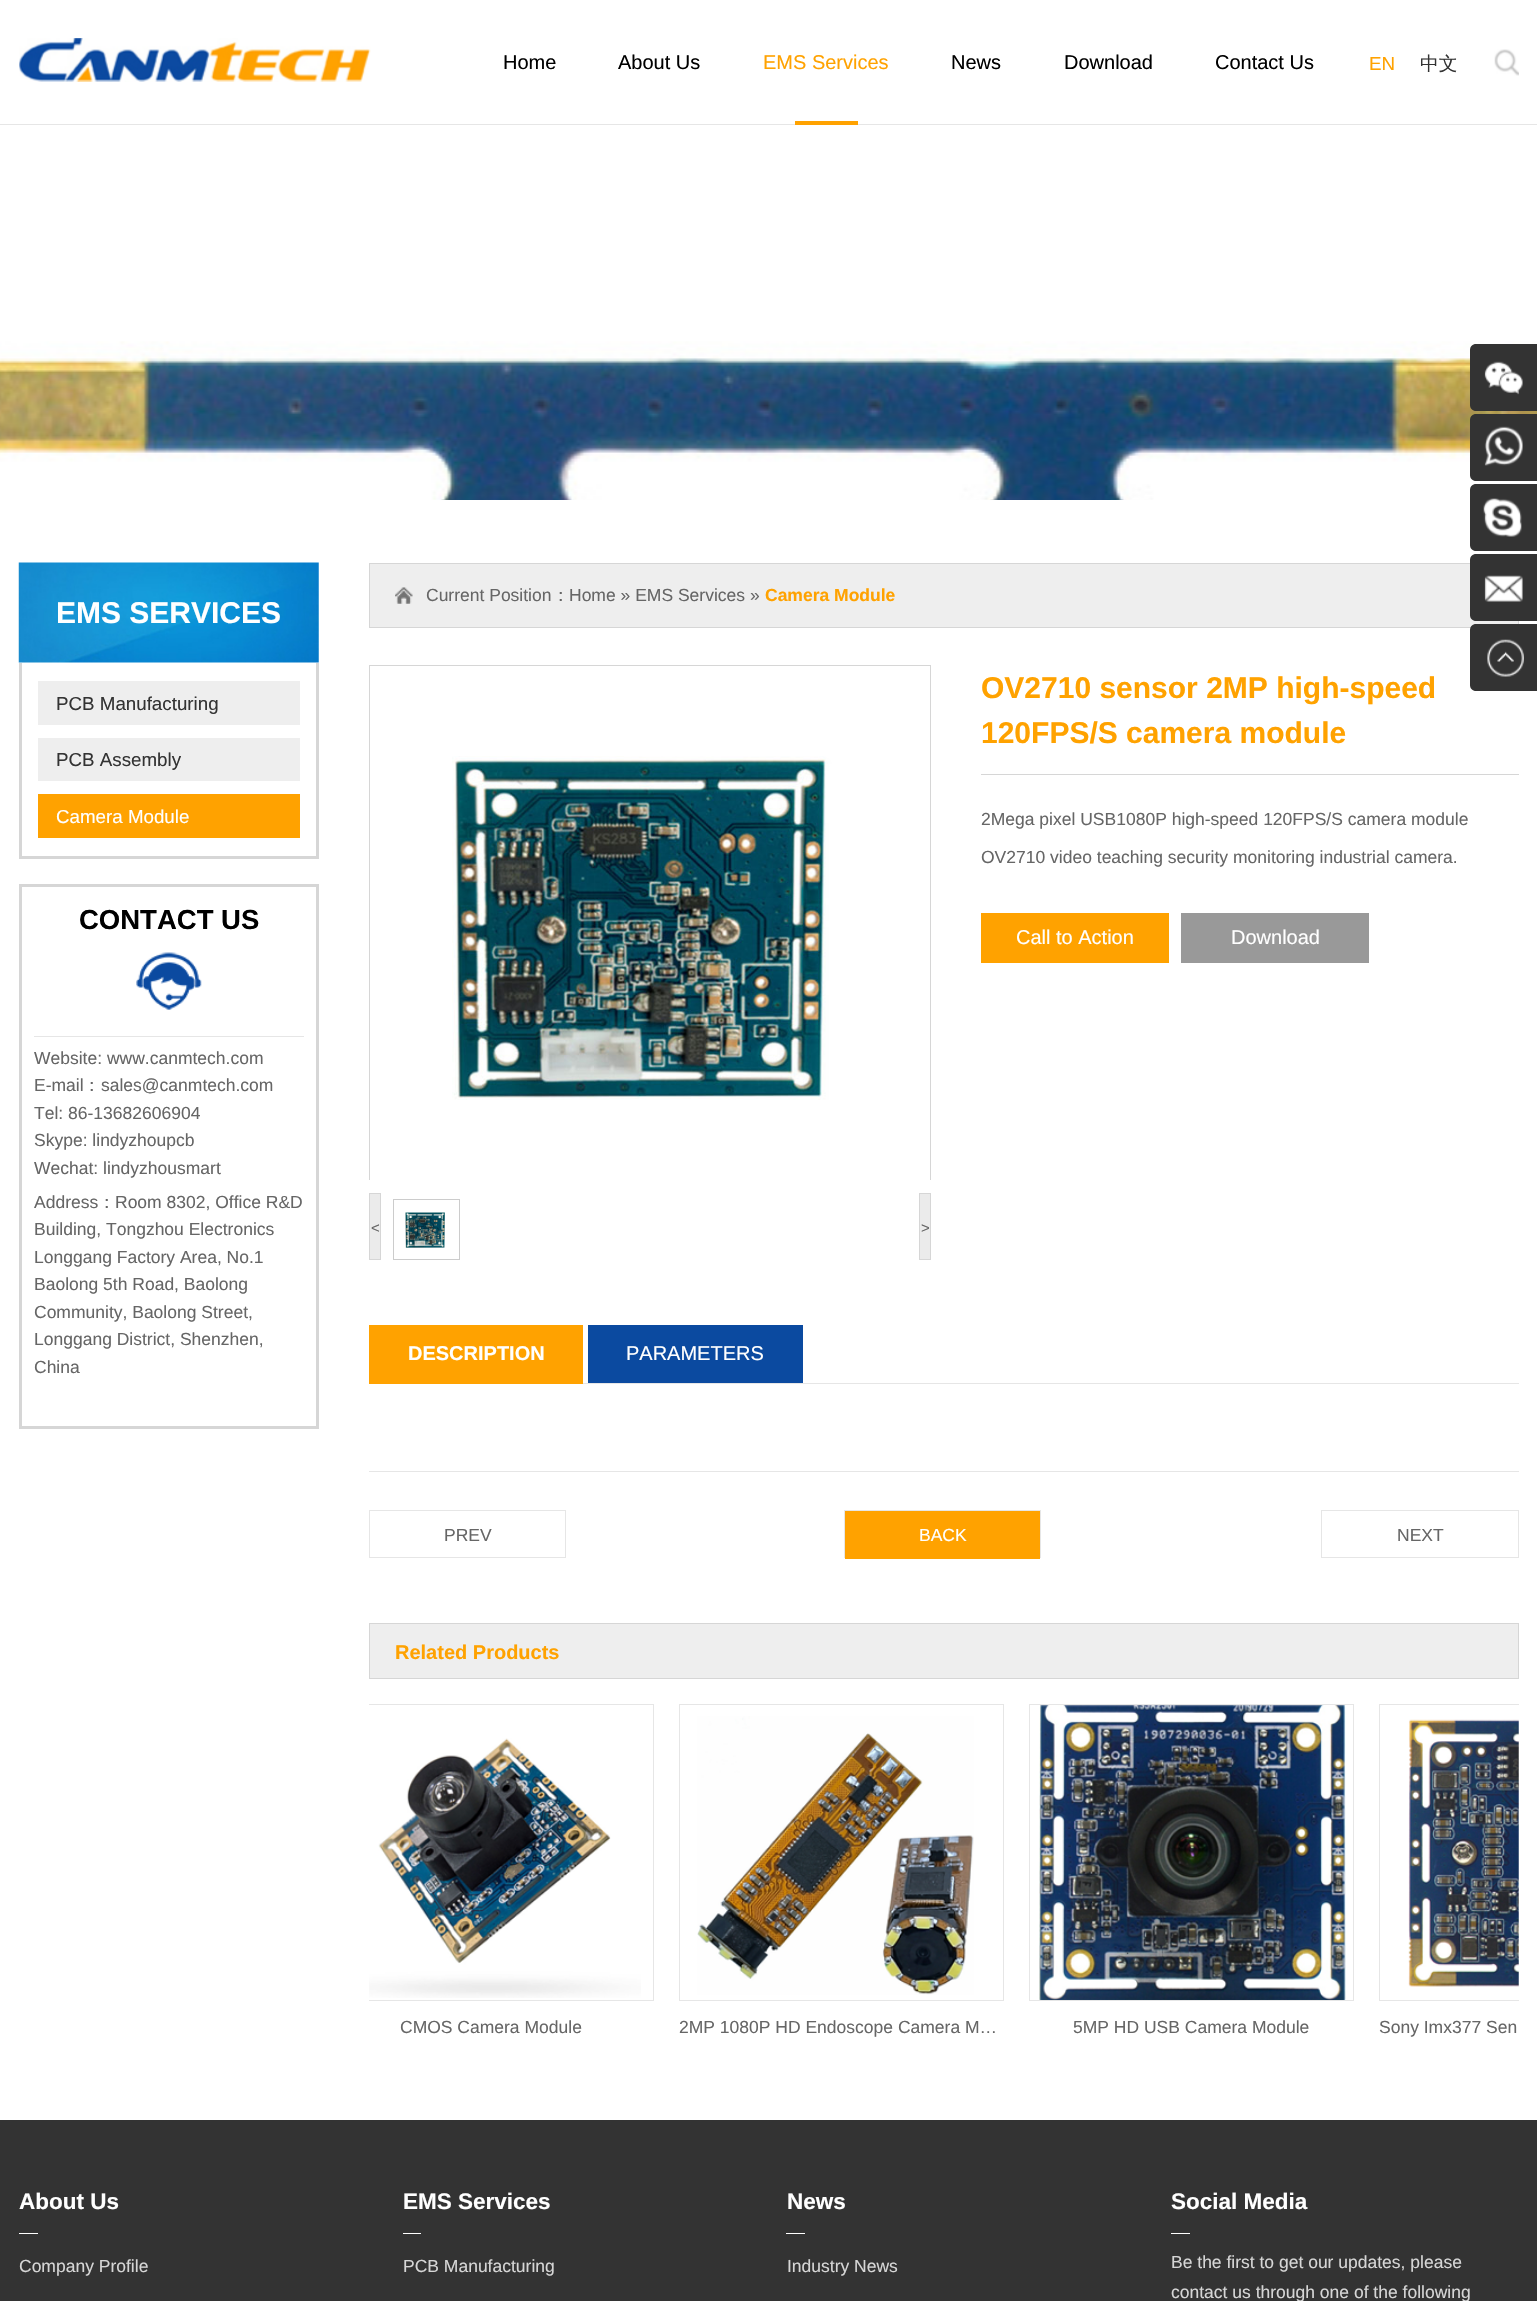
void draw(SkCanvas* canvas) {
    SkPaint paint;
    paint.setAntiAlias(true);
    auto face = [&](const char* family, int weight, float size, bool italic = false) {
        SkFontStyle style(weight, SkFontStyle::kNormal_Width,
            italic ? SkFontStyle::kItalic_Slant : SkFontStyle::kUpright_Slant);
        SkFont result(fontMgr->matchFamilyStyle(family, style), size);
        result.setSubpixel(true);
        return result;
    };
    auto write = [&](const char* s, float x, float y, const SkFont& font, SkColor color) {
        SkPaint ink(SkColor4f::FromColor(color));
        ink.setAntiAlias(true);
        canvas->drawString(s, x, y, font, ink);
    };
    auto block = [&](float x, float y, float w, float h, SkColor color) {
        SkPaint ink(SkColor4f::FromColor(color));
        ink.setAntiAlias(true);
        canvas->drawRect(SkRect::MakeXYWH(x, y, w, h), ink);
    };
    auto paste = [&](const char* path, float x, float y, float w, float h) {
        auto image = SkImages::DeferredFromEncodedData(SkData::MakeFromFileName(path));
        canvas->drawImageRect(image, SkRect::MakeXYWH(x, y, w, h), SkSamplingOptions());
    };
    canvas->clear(SK_ColorWHITE);
    block(0, 124, 1537, 1, SkColorSetRGB(230, 230, 230));
    paste("pic1.png", 19, 38, 352, 44);
    auto kFont1 = face("Liberation Sans", 400, 20);
    write("Home", 503, 69, kFont1, SK_ColorBLACK);
    write("About Us", 618, 69, kFont1, SK_ColorBLACK);
    write("EMS Services", 763, 69, kFont1, SkColorSetRGB(255, 162, 0));
    block(795, 121, 63, 4, SkColorSetRGB(255, 162, 0));
    write("News", 951, 69, kFont1, SK_ColorBLACK);
    write("Download", 1064, 69, kFont1, SK_ColorBLACK);
    write("Contact Us", 1215, 69, kFont1, SK_ColorBLACK);
    auto kFont2 = face("Liberation Sans", 400, 18.75f);
    write("EN", 1369, 70, kFont2, SkColorSetRGB(255, 162, 0));
    auto kFont3 = face("WenQuanYi Zen Hei", 500, 18.75f);
    write("中文", 1420, 70, kFont3, SkColorSetRGB(51, 51, 51));
    paste("pic2.png", 1494, 49, 25, 27);
    paste("pic3.png", 0, 341, 1537, 159);
    paint.setColor(SkColorSetRGB(51, 51, 51));
    canvas->drawPath(SkPathBuilder().moveTo(1476, 344).lineTo(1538, 344).lineTo(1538, 411).lineTo(1476, 411).cubicTo(1472.5f, 411, 1470, 408.5f, 1470, 405).lineTo(1470, 350).cubicTo(1470, 346.5f, 1472.5f, 344, 1476, 344).close().detach(), paint);
    paste("pic4.png", 1484, 361, 39, 34);
    canvas->drawPath(SkPathBuilder().moveTo(1476, 414).lineTo(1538, 414).lineTo(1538, 481).lineTo(1476, 481).cubicTo(1472.5f, 481, 1470, 478.5f, 1470, 475).lineTo(1470, 420).cubicTo(1470, 416.5f, 1472.5f, 414, 1476, 414).close().detach(), paint);
    paste("pic5.png", 1484, 426, 39, 40);
    canvas->drawPath(SkPathBuilder().moveTo(1476, 484).lineTo(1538, 484).lineTo(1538, 551).lineTo(1476, 551).cubicTo(1472.5f, 551, 1470, 548.5f, 1470, 545).lineTo(1470, 490).cubicTo(1470, 486.5f, 1472.5f, 484, 1476, 484).close().detach(), paint);
    paste("pic6.png", 1483, 498, 39, 39);
    paint.setColor(SkColorSetRGB(238, 238, 238));
    canvas->drawRect(SkRect::MakeXYWH(369.5f, 563.5f, 1149, 64), paint);
    paint.setStyle(SkPaint::kStroke_Style);
    paint.setStrokeWidth(1);
    paint.setColor(SkColorSetRGB(214, 214, 214));
    canvas->drawRect(SkRect::MakeXYWH(369.5f, 563.5f, 1149, 64), paint);
    paint.setStyle(SkPaint::kFill_Style);
    paint.setColor(SkColorSetRGB(51, 51, 51));
    canvas->drawPath(SkPathBuilder().moveTo(1476, 554).lineTo(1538, 554).lineTo(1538, 621).lineTo(1476, 621).cubicTo(1472.5f, 621, 1470, 618.5f, 1470, 615).lineTo(1470, 560).cubicTo(1470, 556.5f, 1472.5f, 554, 1476, 554).close().detach(), paint);
    paste("pic7.png", 1484, 575, 39, 27);
    canvas->drawPath(SkPathBuilder().moveTo(1476, 624).lineTo(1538, 624).lineTo(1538, 691).lineTo(1476, 691).cubicTo(1472.5f, 691, 1470, 688.5f, 1470, 685).lineTo(1470, 630).cubicTo(1470, 626.5f, 1472.5f, 624, 1476, 624).close().detach(), paint);
    paste("pic8.png", 1487, 639, 37, 38);
    paste("pic9.png", 18, 562, 301, 101);
    auto kFont4 = face("Liberation Sans", 700, 30);
    write("EMS SERVICES", 56, 623, kFont4, SK_ColorWHITE);
    block(316, 663, 3, 196, SkColorSetRGB(214, 214, 214));
    block(19, 856, 300, 3, SkColorSetRGB(214, 214, 214));
    block(19, 663, 3, 196, SkColorSetRGB(214, 214, 214));
    block(38, 681, 262, 44, SkColorSetRGB(238, 238, 238));
    write("PCB Manufacturing", 56, 710, kFont2, SkColorSetRGB(51, 51, 51));
    block(38, 738, 262, 43, SkColorSetRGB(238, 238, 238));
    write("PCB Assembly", 56, 766, kFont2, SkColorSetRGB(51, 51, 51));
    block(38, 794, 262, 44, SkColorSetRGB(255, 162, 0));
    write("Camera Module", 56, 823, kFont2, SK_ColorWHITE);
    paint.setStyle(SkPaint::kStroke_Style);
    paint.setStrokeWidth(3);
    paint.setColor(SkColorSetRGB(214, 214, 214));
    canvas->drawRect(SkRect::MakeXYWH(20.5f, 885.5f, 297, 542), paint);
    auto kFont5 = face("Liberation Sans", 700, 27.5f);
    write("CONTACT US", 79, 929, kFont5, SK_ColorBLACK);
    paste("pic10.png", 136, 952, 66, 58);
    block(34, 1036, 270, 1, SkColorSetRGB(230, 230, 230));
    auto kFont6 = face("Liberation Sans", 400, 17.5f);
    write("Website: www.canmtech.com", 34, 1064, kFont6, SkColorSetRGB(102, 102, 102));
    write("E-mail", 34, 1091, kFont6, SkColorSetRGB(102, 102, 102));
    auto kFont7 = face("WenQuanYi Zen Hei", 500, 17.5f);
    write("：", 83, 1091, kFont7, SkColorSetRGB(102, 102, 102));
    write("sales@canmtech.com", 101, 1091, kFont6, SkColorSetRGB(102, 102, 102));
    write("Tel: 86-13682606904", 34, 1119, kFont6, SkColorSetRGB(102, 102, 102));
    write("Skype: lindyzhoupcb", 34, 1146, kFont6, SkColorSetRGB(102, 102, 102));
    write("Wechat: lindyzhousmart", 34, 1174, kFont6, SkColorSetRGB(102, 102, 102));
    write("Address", 34, 1208, kFont6, SkColorSetRGB(102, 102, 102));
    write("：", 98, 1208, kFont7, SkColorSetRGB(102, 102, 102));
    write("Room 8302, Office R&D", 115, 1208, kFont6, SkColorSetRGB(102, 102, 102));
    write("Building, Tongzhou Electronics", 34, 1235, kFont6, SkColorSetRGB(102, 102, 102));
    write("Longgang Factory Area, No.1", 34, 1263, kFont6, SkColorSetRGB(102, 102, 102));
    write("Baolong 5th Road, Baolong", 34, 1290, kFont6, SkColorSetRGB(102, 102, 102));
    write("Community, Baolong Street,", 34, 1318, kFont6, SkColorSetRGB(102, 102, 102));
    write("Longgang District, Shenzhen,", 34, 1345, kFont6, SkColorSetRGB(102, 102, 102));
    write("China", 34, 1373, kFont6, SkColorSetRGB(102, 102, 102));
    paste("pic11.png", 395, 587, 18, 17);
    write("Current Position", 426, 601, kFont6, SkColorSetRGB(102, 102, 102));
    write("：", 552, 601, kFont7, SkColorSetRGB(102, 102, 102));
    write("Home » EMS Services »", 569, 601, kFont6, SkColorSetRGB(102, 102, 102));
    auto kFont8 = face("Liberation Sans", 700, 17.5f);
    write("Camera Module", 765, 601, kFont8, SkColorSetRGB(255, 162, 0));
    block(981, 774, 538, 1, SkColorSetRGB(214, 214, 214));
    write("OV2710 sensor 2MP high-speed", 981, 698, kFont4, SkColorSetRGB(255, 162, 0));
    write("120FPS/S camera module", 981, 743, kFont4, SkColorSetRGB(255, 162, 0));
    write("2Mega pixel USB1080P high-speed 120FPS/S camera module", 981, 825, kFont6, SkColorSetRGB(102, 102, 102));
    write("OV2710 video teaching security monitoring industrial camera.", 981, 863, kFont6, SkColorSetRGB(102, 102, 102));
    block(981, 913, 188, 50, SkColorSetRGB(255, 162, 0));
    write("Call to Action", 1016, 944, kFont1, SK_ColorWHITE);
    block(1181, 913, 188, 50, SkColorSetRGB(153, 153, 153));
    write("Download", 1231, 944, kFont1, SK_ColorWHITE);
    paint.setStrokeWidth(1);
    canvas->drawRect(SkRect::MakeXYWH(369.5f, 665.5f, 561, 514), paint);
    paste("pic12.png", 370, 756, 560, 424);
    paint.setStyle(SkPaint::kFill_Style);
    paint.setColor(SkColorSetRGB(235, 235, 235));
    canvas->drawRect(SkRect::MakeXYWH(369.5f, 1193.5f, 11, 66), paint);
    paint.setStyle(SkPaint::kStroke_Style);
    paint.setColor(SkColorSetRGB(214, 214, 214));
    canvas->drawRect(SkRect::MakeXYWH(369.5f, 1193.5f, 11, 66), paint);
    auto kFont9 = face("Liberation Sans", 400, 15);
    write("<", 371, 1233, kFont9, SkColorSetRGB(102, 102, 102));
    paint.setColor(SkColorSetRGB(204, 204, 204));
    canvas->drawRect(SkRect::MakeXYWH(393.5f, 1199.5f, 66, 60), paint);
    paste("pic13.png", 405, 1212, 40, 36);
    paint.setStyle(SkPaint::kFill_Style);
    paint.setColor(SkColorSetRGB(235, 235, 235));
    canvas->drawRect(SkRect::MakeXYWH(919.5f, 1193.5f, 11, 66), paint);
    paint.setStyle(SkPaint::kStroke_Style);
    paint.setColor(SkColorSetRGB(214, 214, 214));
    canvas->drawRect(SkRect::MakeXYWH(919.5f, 1193.5f, 11, 66), paint);
    write(">", 921, 1233, kFont9, SkColorSetRGB(102, 102, 102));
    block(583, 1383, 936, 1, SkColorSetRGB(230, 230, 230));
    block(369, 1325, 214, 59, SkColorSetRGB(255, 162, 0));
    auto kFont10 = face("Liberation Sans", 700, 20);
    write("DESCRIPTION", 408, 1360, kFont10, SK_ColorWHITE);
    block(588, 1325, 215, 58, SkColorSetRGB(11, 74, 160));
    write("PARAMETERS", 626, 1360, kFont1, SK_ColorWHITE);
    block(369, 1471, 1150, 1, SkColorSetRGB(230, 230, 230));
    paint.setColor(SkColorSetRGB(230, 230, 230));
    canvas->drawRect(SkRect::MakeXYWH(369.5f, 1510.5f, 196, 47), paint);
    write("PREV", 444, 1541, kFont6, SkColorSetRGB(102, 102, 102));
    canvas->drawRect(SkRect::MakeXYWH(844.5f, 1510.5f, 196, 47), paint);
    block(845, 1511, 195, 48, SkColorSetRGB(255, 162, 0));
    write("BACK", 919, 1541, kFont6, SK_ColorWHITE);
    canvas->drawRect(SkRect::MakeXYWH(1321.5f, 1510.5f, 197, 47), paint);
    write("NEXT", 1397, 1541, kFont6, SkColorSetRGB(102, 102, 102));
    paint.setStyle(SkPaint::kFill_Style);
    paint.setColor(SkColorSetRGB(238, 238, 238));
    canvas->drawRect(SkRect::MakeXYWH(369.5f, 1623.5f, 1149, 55), paint);
    paint.setStyle(SkPaint::kStroke_Style);
    paint.setColor(SkColorSetRGB(214, 214, 214));
    canvas->drawRect(SkRect::MakeXYWH(369.5f, 1623.5f, 1149, 55), paint);
    write("Related Products", 395, 1659, kFont10, SkColorSetRGB(255, 162, 0));
    canvas->save();
    canvas->clipRect(SkRect::MakeXYWH(369, 1704, 285, 341));
    paint.setColor(SkColorSetRGB(230, 230, 230));
    canvas->drawRect(SkRect::MakeXYWH(329.5f, 1704.5f, 324, 296), paint);
    canvas->restore();
    paste("pic14.png", 369, 1738, 272, 260);
    write("CMOS Camera Module", 400, 2033, kFont6, SkColorSetRGB(102, 102, 102));
    canvas->drawRect(SkRect::MakeXYWH(679.5f, 1704.5f, 324, 296), paint);
    paste("pic15.png", 697, 1716, 277, 279);
    write("2MP 1080P HD Endoscope Camera M…", 679, 2033, kFont6, SkColorSetRGB(102, 102, 102));
    canvas->drawRect(SkRect::MakeXYWH(1029.5f, 1704.5f, 324, 296), paint);
    paste("pic16.png", 1039, 1705, 307, 295);
    write("5MP HD USB Camera Module", 1073, 2033, kFont6, SkColorSetRGB(102, 102, 102));
    canvas->save();
    canvas->clipRect(SkRect::MakeXYWH(1379, 1704, 140, 341));
    canvas->drawRect(SkRect::MakeXYWH(1379.5f, 1704.5f, 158, 296), paint);
    canvas->restore();
    paste("pic17.png", 1408, 1719, 111, 268);
    write("Sony Imx377 Sen", 1379, 2033, kFont6, SkColorSetRGB(102, 102, 102));
    block(0, 2120, 1537, 181, SkColorSetRGB(51, 51, 51));
    auto kFont11 = face("Liberation Sans", 700, 22.5f);
    write("About Us", 19, 2209, kFont11, SK_ColorWHITE);
    block(19, 2233, 19, 1, SK_ColorWHITE);
    write("Company Profile", 19, 2272, kFont6, SkColorSetRGB(214, 214, 214));
    write("EMS Services", 403, 2209, kFont11, SK_ColorWHITE);
    block(403, 2233, 18, 1, SK_ColorWHITE);
    write("PCB Manufacturing", 403, 2272, kFont6, SkColorSetRGB(214, 214, 214));
    write("News", 787, 2209, kFont11, SK_ColorWHITE);
    block(786, 2233, 19, 1, SK_ColorWHITE);
    write("Industry News", 787, 2272, kFont6, SkColorSetRGB(214, 214, 214));
    write("Social Media", 1171, 2209, kFont11, SK_ColorWHITE);
    block(1171, 2233, 19, 1, SK_ColorWHITE);
    write("Be the first to get our updates, please", 1171, 2268, kFont6, SkColorSetRGB(214, 214, 214));
    write("contact us through one of the following", 1171, 2298, kFont6, SkColorSetRGB(214, 214, 214));
}
